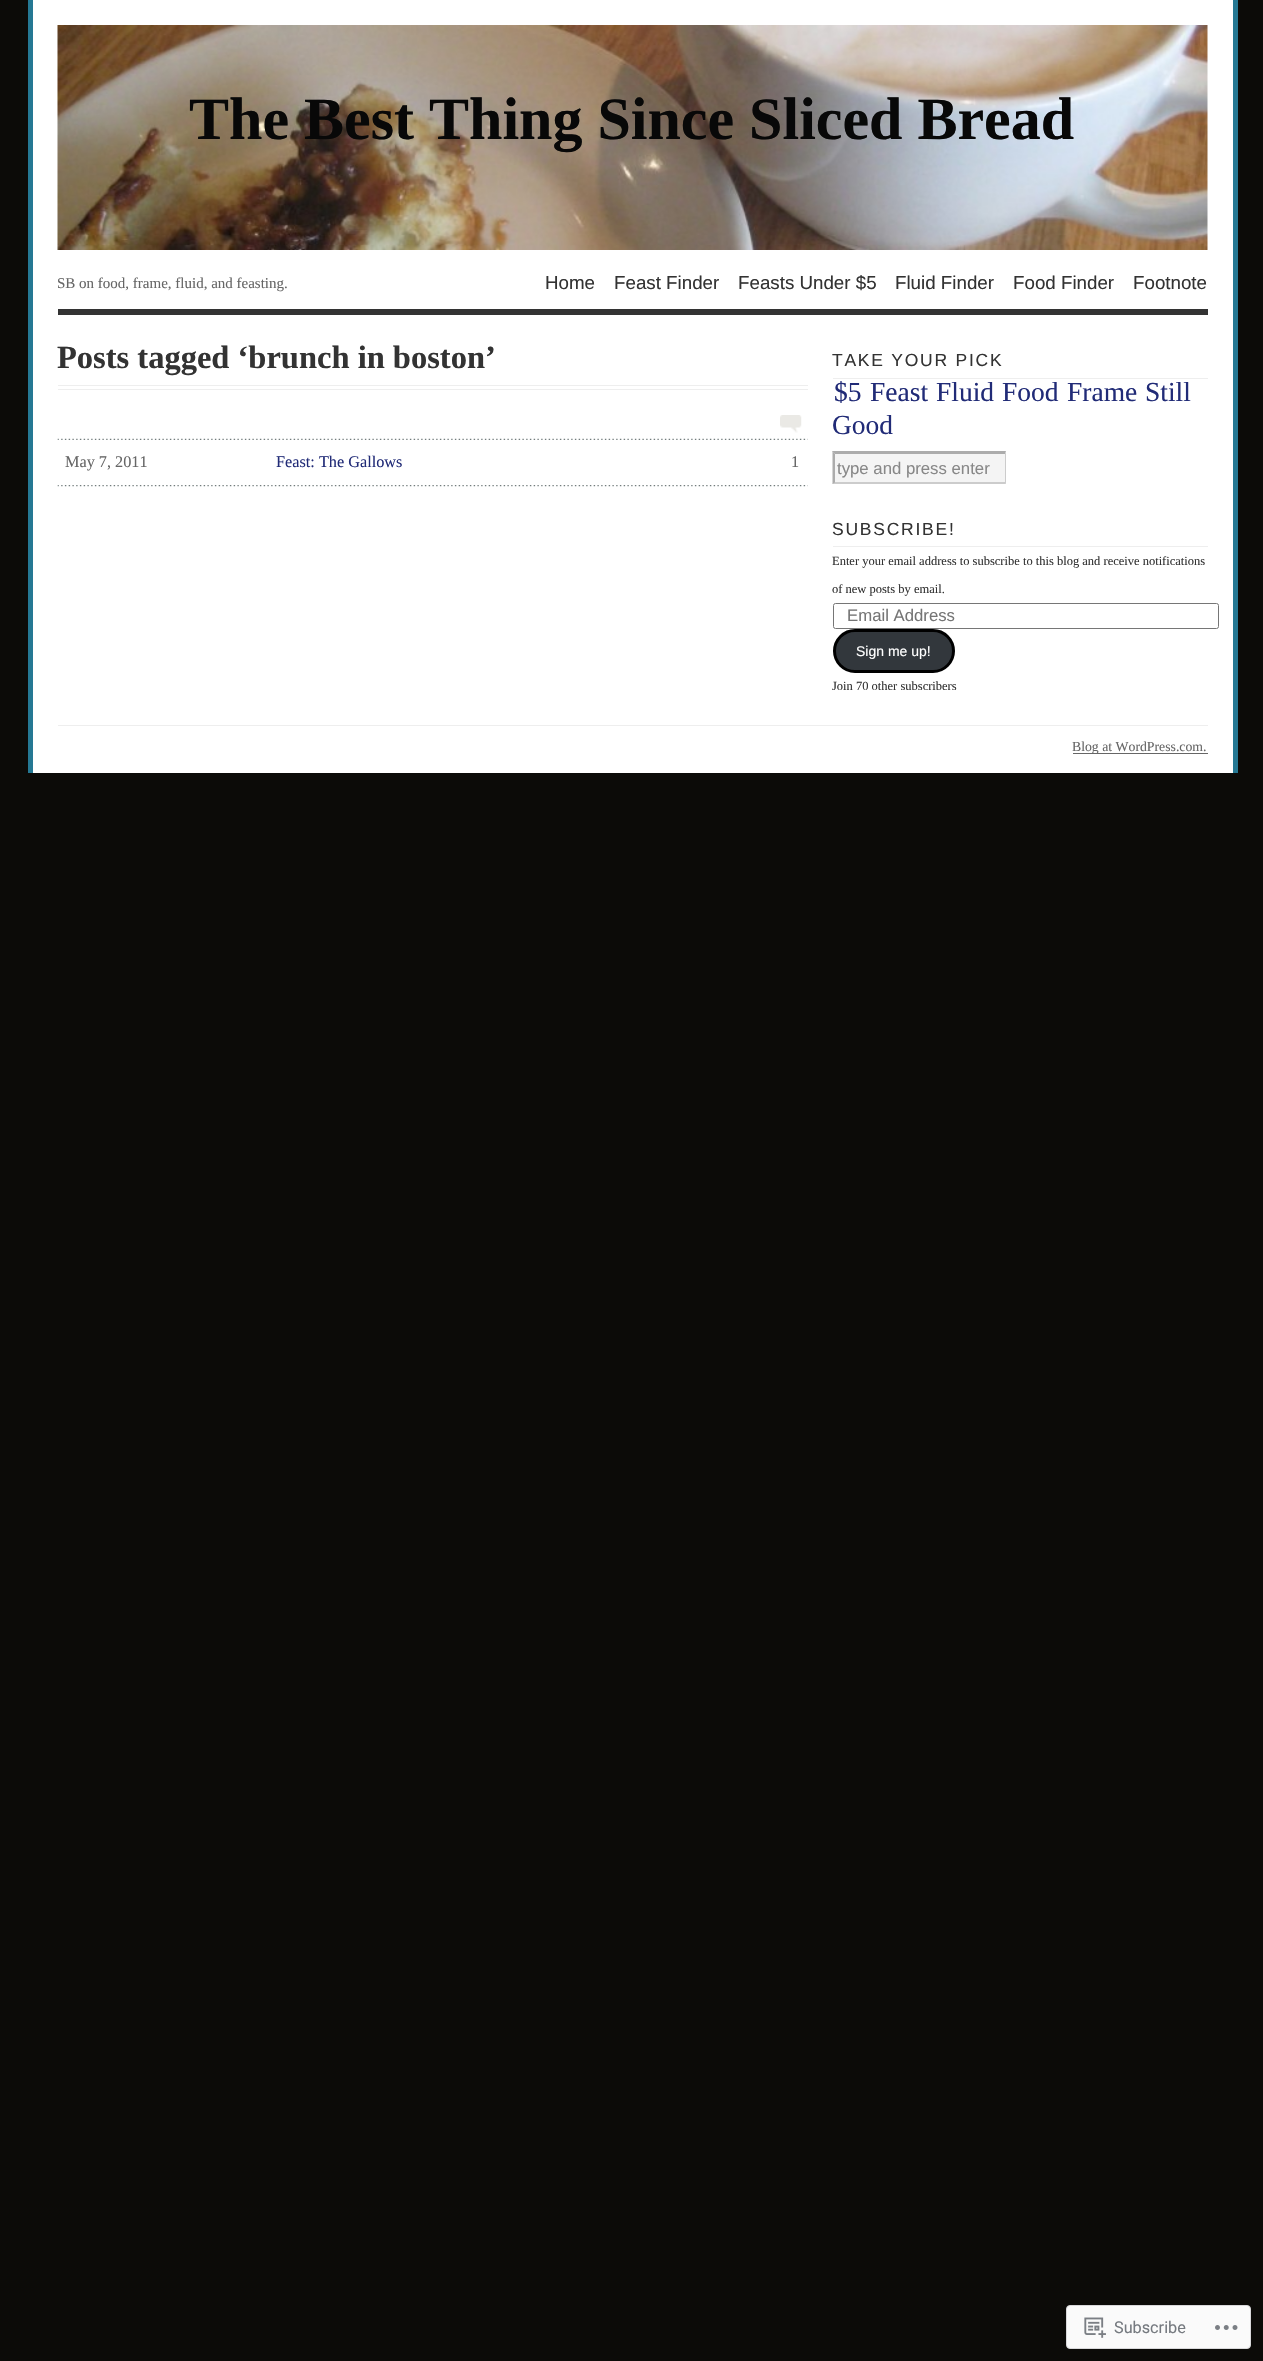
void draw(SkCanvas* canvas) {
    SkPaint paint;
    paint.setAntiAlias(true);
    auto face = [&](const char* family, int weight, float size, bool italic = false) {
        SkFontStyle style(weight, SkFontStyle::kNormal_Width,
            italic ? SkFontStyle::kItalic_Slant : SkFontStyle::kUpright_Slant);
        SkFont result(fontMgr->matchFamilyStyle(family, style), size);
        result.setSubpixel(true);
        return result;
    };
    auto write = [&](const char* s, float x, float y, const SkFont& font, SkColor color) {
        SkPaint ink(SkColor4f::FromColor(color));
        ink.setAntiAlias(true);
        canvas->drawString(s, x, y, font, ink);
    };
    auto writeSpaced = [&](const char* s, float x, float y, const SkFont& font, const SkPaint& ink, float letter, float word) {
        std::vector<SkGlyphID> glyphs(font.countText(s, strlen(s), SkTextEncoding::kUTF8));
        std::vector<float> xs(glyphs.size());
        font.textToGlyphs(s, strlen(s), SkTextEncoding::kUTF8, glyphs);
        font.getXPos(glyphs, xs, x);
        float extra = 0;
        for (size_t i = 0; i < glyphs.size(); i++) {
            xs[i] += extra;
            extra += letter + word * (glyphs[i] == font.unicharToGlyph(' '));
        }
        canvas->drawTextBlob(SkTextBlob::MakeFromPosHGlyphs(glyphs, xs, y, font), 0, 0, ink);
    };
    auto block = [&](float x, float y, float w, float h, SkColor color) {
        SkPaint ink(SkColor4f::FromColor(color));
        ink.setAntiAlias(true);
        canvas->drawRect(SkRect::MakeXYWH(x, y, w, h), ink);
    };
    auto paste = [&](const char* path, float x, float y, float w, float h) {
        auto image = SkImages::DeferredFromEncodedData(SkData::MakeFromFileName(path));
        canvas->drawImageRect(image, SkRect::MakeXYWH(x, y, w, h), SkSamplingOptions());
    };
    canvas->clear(SkColorSetRGB(12, 11, 8));
    block(33, 0, 1200, 773, SK_ColorWHITE);
    block(1233, 0, 5, 773, SkColorSetRGB(37, 120, 147));
    block(28, 0, 5, 773, SkColorSetRGB(37, 120, 147));
    block(58, 309, 1150, 6, SkColorSetRGB(51, 51, 51));
    paste("pic1.png", 57, 25, 1151, 225);
    auto kFont1 = face("Liberation Serif", 700, 60);
    write("The Best Thing Since Sliced Bread", 189, 139, kFont1, SkColorSetRGB(8, 8, 8));
    auto kFont2 = face("Liberation Serif", 400, 15);
    write("SB on food, frame, fluid, and feasting.", 57, 288, kFont2, SkColorSetRGB(102, 102, 102));
    auto kFont3 = face("Liberation Sans", 400, 18.75f);
    write("Home", 545, 289, kFont3, SkColorSetRGB(51, 51, 51));
    write("Feast Finder", 614, 289, kFont3, SkColorSetRGB(51, 51, 51));
    write("Feasts Under $5", 738, 289, kFont3, SkColorSetRGB(51, 51, 51));
    write("Fluid Finder", 895, 289, kFont3, SkColorSetRGB(51, 51, 51));
    write("Food Finder", 1013, 289, kFont3, SkColorSetRGB(51, 51, 51));
    write("Footnote", 1133, 289, kFont3, SkColorSetRGB(51, 51, 51));
    block(58, 385, 750, 1, SkColorSetRGB(238, 238, 238));
    block(58, 389, 750, 1, SkColorSetRGB(238, 238, 238));
    auto kFont4 = face("Liberation Serif", 700, 32.5f);
    write("Posts tagged ‘brunch in boston’", 57, 368, kFont4, SkColorSetRGB(51, 51, 51));
    paste("pic2.png", 780, 415, 22, 18);
    paste("pic3.png", 57, 485, 751, 2);
    paste("pic4.png", 57, 438, 751, 2);
    auto kFont5 = face("Liberation Serif", 400, 16.25f);
    write("May 7, 2011", 65, 467, kFont5, SkColorSetRGB(102, 102, 102));
    write("Feast: The Gallows", 276, 467, kFont5, SkColorSetRGB(33, 43, 119));
    write("1", 791, 467, kFont5, SkColorSetRGB(102, 102, 102));
    block(833, 378, 375, 1, SkColorSetRGB(238, 238, 238));
    auto kFont6 = face("Liberation Sans", 400, 17.5f);
    paint.setColor(SkColorSetRGB(51, 51, 51));
    writeSpaced("TAKE YOUR PICK", 832, 366, kFont6, paint, 1.75f, 0);
    auto kFont7 = face("Liberation Serif", 400, 27.5f);
    write("$5", 834, 401, kFont7, SkColorSetRGB(33, 43, 119));
    write("Feast", 870, 401, kFont7, SkColorSetRGB(33, 43, 119));
    write("Fluid", 936, 401, kFont7, SkColorSetRGB(33, 43, 119));
    write("Food", 1002, 401, kFont7, SkColorSetRGB(33, 43, 119));
    write("Frame", 1067, 401, kFont7, SkColorSetRGB(33, 43, 119));
    write("Still", 1145, 401, kFont7, SkColorSetRGB(33, 43, 119));
    write("Good", 832, 434, kFont7, SkColorSetRGB(33, 43, 119));
    block(835, 454, 170, 28, SkColorSetRGB(244, 244, 244));
    paint.setColor(SkColorSetRGB(172, 172, 172));
    canvas->drawPath(SkPathBuilder().moveTo(832, 451).lineTo(1006, 451).lineTo(1005, 454).lineTo(835, 454).close().detach(), paint);
    paint.setColor(SkColorSetRGB(204, 204, 204));
    canvas->drawPath(SkPathBuilder().moveTo(1006, 451).lineTo(1006, 484).lineTo(1005, 482.5f).lineTo(1005, 454).close().detach(), paint);
    canvas->drawPath(SkPathBuilder().moveTo(1006, 484).lineTo(832, 484).lineTo(835, 482).lineTo(1005, 482).close().detach(), paint);
    paint.setColor(SkColorSetRGB(172, 172, 172));
    canvas->drawPath(SkPathBuilder().moveTo(832.5f, 484).lineTo(832.5f, 451).lineTo(835, 454).lineTo(835, 482.5f).close().detach(), paint);
    auto kFont8 = face("Liberation Sans", 400, 16.75f);
    write("type and press enter", 837, 474, kFont8, SkColorSetRGB(136, 136, 136));
    block(833, 546, 375, 1, SkColorSetRGB(238, 238, 238));
    paint.setColor(SkColorSetRGB(51, 51, 51));
    writeSpaced("SUBSCRIBE!", 832, 535, kFont6, paint, 1.75f, 0);
    auto kFont9 = face("Liberation Serif", 400, 12.5f);
    write("Enter your email address to subscribe to this blog and receive notifications", 832, 565, kFont9, SkColorSetRGB(51, 51, 51));
    write("of new posts by email.", 832, 593, kFont9, SkColorSetRGB(51, 51, 51));
    paint.setStyle(SkPaint::kStroke_Style);
    paint.setStrokeWidth(1);
    paint.setColor(SkColorSetRGB(118, 118, 118));
    canvas->drawRoundRect(SkRect::MakeXYWH(833.5f, 603.5f, 385, 25), 2, 2, paint);
    write("Email Address", 847, 621, kFont8, SkColorSetRGB(117, 117, 117));
    paint.setStyle(SkPaint::kFill_Style);
    paint.setColor(SkColorSetRGB(50, 55, 60));
    canvas->drawRoundRect(SkRect::MakeXYWH(834.5f, 630.5f, 119, 41), 20.5f, 20.5f, paint);
    paint.setStyle(SkPaint::kStroke_Style);
    paint.setStrokeWidth(3);
    paint.setColor(SK_ColorBLACK);
    canvas->drawRoundRect(SkRect::MakeXYWH(834.5f, 630.5f, 119, 41), 20.5f, 20.5f, paint);
    auto kFont10 = face("Liberation Sans", 400, 14);
    write("Sign me up!", 856, 656, kFont10, SK_ColorWHITE);
    write("Join 70 other subscribers", 832, 690, kFont9, SkColorSetRGB(51, 51, 51));
    block(58, 725, 1150, 1, SkColorSetRGB(238, 238, 238));
    block(1073, 753, 135, 1, SkColorSetRGB(102, 102, 102));
    auto kFont11 = face("Liberation Serif", 400, 13.75f);
    write("Blog at WordPress.com.", 1072, 751, kFont11, SkColorSetRGB(102, 102, 102));
    paint.setStyle(SkPaint::kFill_Style);
    paint.setColor(SkColorSetRGB(250, 250, 250));
    canvas->drawRoundRect(SkRect::MakeXYWH(1066.5f, 2305.5f, 184, 43), 3.5f, 3.5f, paint);
    paint.setStyle(SkPaint::kStroke_Style);
    paint.setStrokeWidth(1);
    paint.setColor(SkColorSetRGB(216, 216, 218));
    canvas->drawRoundRect(SkRect::MakeXYWH(1066.5f, 2305.5f, 184, 43), 3.5f, 3.5f, paint);
    paste("pic5.png", 1084, 2317, 22, 21);
    auto kFont12 = face("Roboto", 400, 16.25f);
    write("Subscribe", 1114, 2333, kFont12, SkColorSetRGB(118, 122, 128));
    paste("pic6.png", 1215, 2325, 23, 5);
}
